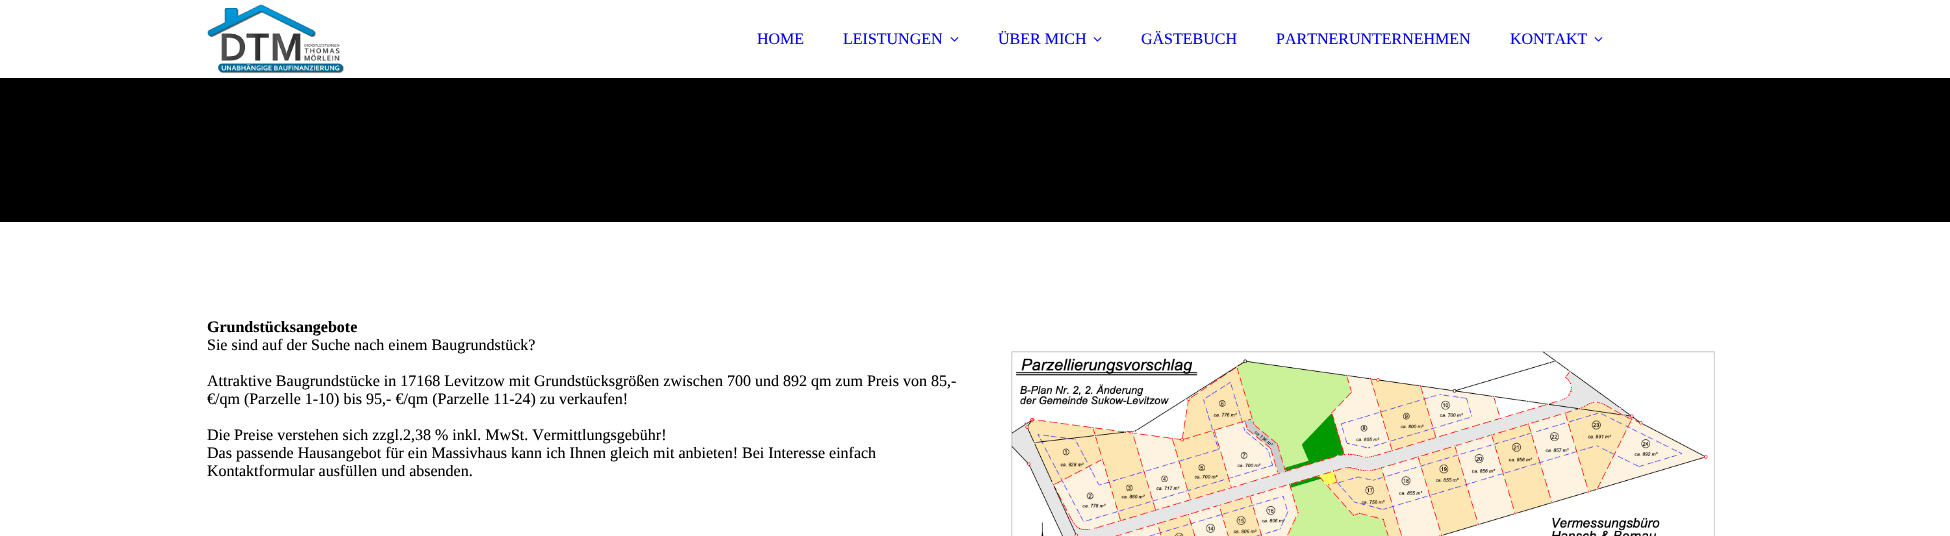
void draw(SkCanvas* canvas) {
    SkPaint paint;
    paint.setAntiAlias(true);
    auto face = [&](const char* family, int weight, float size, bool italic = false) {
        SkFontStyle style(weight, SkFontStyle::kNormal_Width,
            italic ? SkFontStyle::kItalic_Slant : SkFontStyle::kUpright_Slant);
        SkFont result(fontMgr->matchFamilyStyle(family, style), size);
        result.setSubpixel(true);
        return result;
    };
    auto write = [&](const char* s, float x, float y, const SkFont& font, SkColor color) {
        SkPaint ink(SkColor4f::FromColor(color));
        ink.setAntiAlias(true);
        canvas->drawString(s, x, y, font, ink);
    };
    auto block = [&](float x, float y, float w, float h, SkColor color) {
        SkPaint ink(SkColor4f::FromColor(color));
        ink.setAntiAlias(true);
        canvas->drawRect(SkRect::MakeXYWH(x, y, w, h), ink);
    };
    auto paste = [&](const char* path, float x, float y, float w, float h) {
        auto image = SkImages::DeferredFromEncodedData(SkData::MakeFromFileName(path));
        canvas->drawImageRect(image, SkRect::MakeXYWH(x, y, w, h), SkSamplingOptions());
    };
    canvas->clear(SK_ColorWHITE);
    paste("pic1.png", 207, 4, 137, 70);
    auto kFont1 = face("Liberation Serif", 400, 16);
    write("HOME", 757, 44, kFont1, SkColorSetRGB(0, 0, 238));
    write("LEISTUNGEN", 843, 44, kFont1, SkColorSetRGB(0, 0, 238));
    paste("pic2.png", 950, 37, 9, 5);
    write("ÜBER MICH", 998, 44, kFont1, SkColorSetRGB(0, 0, 238));
    paste("pic2.png", 1093, 37, 9, 5);
    write("GÄSTEBUCH", 1141, 44, kFont1, SkColorSetRGB(0, 0, 238));
    write("PARTNERUNTERNEHMEN", 1276, 44, kFont1, SkColorSetRGB(0, 0, 238));
    write("KONTAKT", 1510, 44, kFont1, SkColorSetRGB(0, 0, 238));
    paste("pic2.png", 1594, 37, 9, 5);
    block(0, 78, 1950, 144, SK_ColorBLACK);
    auto kFont2 = face("Liberation Serif", 700, 16);
    write("Grundstücksangebote", 207, 332, kFont2, SK_ColorBLACK);
    write("Sie sind auf der Suche nach einem Baugrundstück?", 207, 350, kFont1, SK_ColorBLACK);
    write("Attraktive Baugrundstücke in 17168 Levitzow mit Grundstücksgrößen zwischen 700 und 892 qm zum Preis von 85,-", 207, 386, kFont1, SK_ColorBLACK);
    write("€/qm (Parzelle 1-10) bis 95,- €/qm (Parzelle 11-24) zu verkaufen!", 207, 404, kFont1, SK_ColorBLACK);
    write("Die Preise verstehen sich zzgl.2,38 % inkl. MwSt. Vermittlungsgebühr!", 207, 440, kFont1, SK_ColorBLACK);
    write("Das passende Hausangebot für ein Massivhaus kann ich Ihnen gleich mit anbieten! Bei Interesse einfach", 207, 458, kFont1, SK_ColorBLACK);
    write("Kontaktformular ausfüllen und absenden.", 207, 476, kFont1, SK_ColorBLACK);
    paste("pic3.png", 1011, 351, 704, 185);
}
